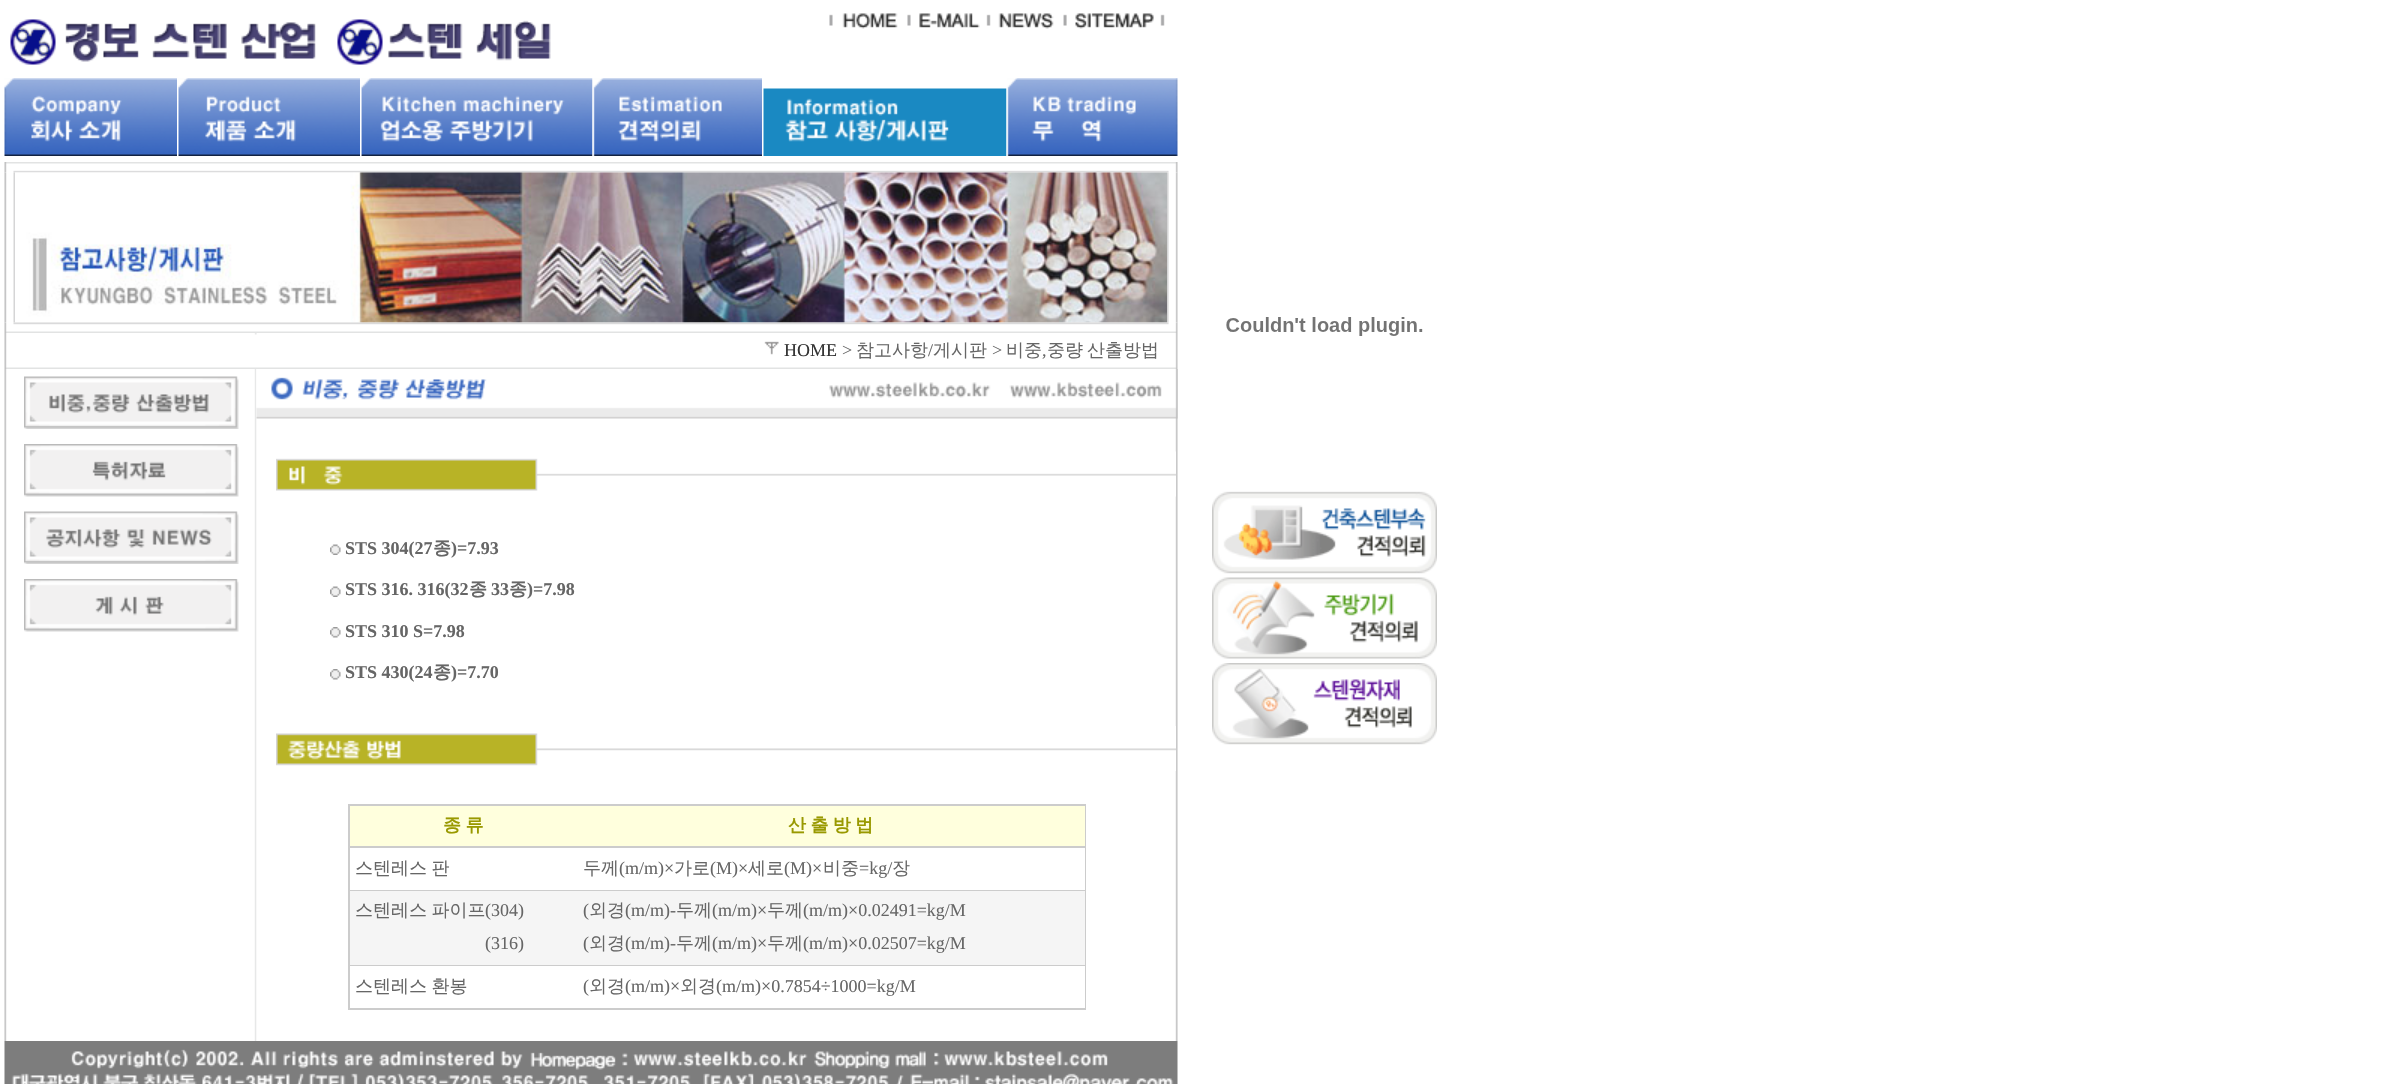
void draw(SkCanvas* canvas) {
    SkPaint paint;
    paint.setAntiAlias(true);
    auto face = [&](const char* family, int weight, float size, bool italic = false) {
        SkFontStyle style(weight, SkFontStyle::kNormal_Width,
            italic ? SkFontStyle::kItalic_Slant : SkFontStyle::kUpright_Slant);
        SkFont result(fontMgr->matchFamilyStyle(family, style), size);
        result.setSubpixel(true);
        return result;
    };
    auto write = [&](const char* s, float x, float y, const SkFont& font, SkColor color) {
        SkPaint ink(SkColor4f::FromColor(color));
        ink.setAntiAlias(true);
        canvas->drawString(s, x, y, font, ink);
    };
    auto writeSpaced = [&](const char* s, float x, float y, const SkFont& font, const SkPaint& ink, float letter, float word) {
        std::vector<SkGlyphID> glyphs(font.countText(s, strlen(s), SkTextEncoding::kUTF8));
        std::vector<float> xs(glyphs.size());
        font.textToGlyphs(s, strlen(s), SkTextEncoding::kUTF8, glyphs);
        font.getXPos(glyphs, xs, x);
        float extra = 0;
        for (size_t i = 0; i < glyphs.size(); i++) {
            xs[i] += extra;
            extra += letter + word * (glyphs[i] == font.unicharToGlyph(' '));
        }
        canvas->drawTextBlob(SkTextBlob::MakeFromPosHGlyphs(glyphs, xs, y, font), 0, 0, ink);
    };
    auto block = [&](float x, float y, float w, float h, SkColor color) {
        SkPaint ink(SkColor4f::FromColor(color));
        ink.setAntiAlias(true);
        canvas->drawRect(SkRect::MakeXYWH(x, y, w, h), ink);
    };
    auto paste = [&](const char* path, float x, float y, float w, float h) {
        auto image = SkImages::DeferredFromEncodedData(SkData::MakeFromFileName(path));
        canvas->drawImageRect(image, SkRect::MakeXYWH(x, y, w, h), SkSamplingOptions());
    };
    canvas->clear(SK_ColorWHITE);
    paste("pic1.png", 10, 19, 541, 46);
    paste("pic2.png", 829, 13, 69, 16);
    paste("pic3.png", 907, 13, 73, 15);
    paste("pic4.png", 986, 13, 68, 16);
    paste("pic5.png", 1063, 13, 102, 16);
    paste("pic6.png", 4, 78, 173, 78);
    paste("pic7.png", 178, 78, 182, 78);
    paste("pic8.png", 361, 78, 232, 78);
    paste("pic9.png", 592, 78, 170, 78);
    paste("pic10.png", 763, 88, 244, 68);
    paste("pic11.png", 1006, 78, 172, 78);
    paste("pic12.png", 4, 162, 11, 11);
    paste("pic13.png", 15, 162, 1152, 11);
    paste("pic14.png", 1167, 162, 11, 11);
    paste("pic15.png", 4, 172, 11, 151);
    paste("pic16.png", 15, 172, 1152, 151);
    paste("pic17.png", 1167, 172, 11, 151);
    paste("pic18.png", 4, 322, 11, 11);
    paste("pic19.png", 15, 322, 1152, 11);
    paste("pic20.png", 1167, 322, 11, 11);
    paste("pic21.png", 4, 333, 1174, 36);
    paste("pic22.png", 764, 341, 15, 14);
    auto kFont1 = face("Liberation Serif", 400, 18);
    write("HOME", 784, 356, kFont1, SkColorSetRGB(51, 51, 51));
    write(">", 842, 356, kFont1, SkColorSetRGB(102, 102, 102));
    auto kFont2 = face("WenQuanYi Zen Hei", 500, 18);
    write("참고사항", 856, 356, kFont2, SkColorSetRGB(102, 102, 102));
    write("/", 928, 356, kFont1, SkColorSetRGB(102, 102, 102));
    write("게시판", 933, 356, kFont2, SkColorSetRGB(102, 102, 102));
    write(">", 992, 356, kFont1, SkColorSetRGB(102, 102, 102));
    write("비중", 1006, 356, kFont2, SkColorSetRGB(102, 102, 102));
    write("중량", 1047, 356, kFont2, SkColorSetRGB(102, 102, 102));
    write("산출방법", 1087, 356, kFont2, SkColorSetRGB(102, 102, 102));
    write(",", 1042, 356, kFont1, SkColorSetRGB(102, 102, 102));
    paste("pic23.png", 4, 369, 253, 672);
    paste("pic24.png", 24, 376, 215, 53);
    paste("pic25.png", 24, 444, 215, 53);
    paste("pic26.png", 24, 511, 215, 53);
    paste("pic27.png", 24, 579, 215, 53);
    paste("pic28.png", 256, 369, 922, 672);
    paste("pic29.png", 256, 369, 922, 50);
    paste("pic30.png", 276, 451, 900, 46);
    paste("pic31.png", 330, 544, 11, 11);
    auto kFont3 = face("Liberation Serif", 700, 18);
    write("STS 304(27", 345, 554, kFont3, SkColorSetRGB(102, 102, 102));
    auto kFont4 = face("WenQuanYi Zen Hei", 700, 18);
    write("종", 433, 554, kFont4, SkColorSetRGB(102, 102, 102));
    write(")=7.93", 451, 554, kFont3, SkColorSetRGB(102, 102, 102));
    paste("pic31.png", 330, 586, 11, 11);
    write("STS 316. 316(32", 345, 595, kFont3, SkColorSetRGB(102, 102, 102));
    write("종", 469, 595, kFont4, SkColorSetRGB(102, 102, 102));
    write("33", 491, 595, kFont3, SkColorSetRGB(102, 102, 102));
    write("종", 509, 595, kFont4, SkColorSetRGB(102, 102, 102));
    write(")=7.98", 527, 595, kFont3, SkColorSetRGB(102, 102, 102));
    paste("pic32.png", 330, 627, 11, 11);
    write("STS 310 S=7.98", 345, 637, kFont3, SkColorSetRGB(102, 102, 102));
    paste("pic32.png", 330, 669, 11, 11);
    write("STS 430(24", 345, 678, kFont3, SkColorSetRGB(102, 102, 102));
    write("종", 433, 678, kFont4, SkColorSetRGB(102, 102, 102));
    write(")=7.70", 451, 678, kFont3, SkColorSetRGB(102, 102, 102));
    paste("pic33.png", 276, 726, 900, 45);
    block(348, 804, 738, 206, SkColorSetRGB(204, 204, 204));
    block(350, 806, 735, 40, SkColorSetRGB(255, 255, 221));
    paint.setColor(SkColorSetRGB(153, 153, 0));
    writeSpaced("종 류", 443, 831, kFont4, paint, 0, -1);
    writeSpaced("산 출 방 법", 788, 831, kFont4, paint, 0, -1);
    block(350, 848, 735, 42, SK_ColorWHITE);
    paint.setColor(SkColorSetRGB(102, 102, 102));
    writeSpaced("스텐레스 판", 355, 874, kFont2, paint, 0, -1);
    write("두께", 583, 874, kFont2, SkColorSetRGB(102, 102, 102));
    write("(m/m)×", 619, 874, kFont1, SkColorSetRGB(102, 102, 102));
    write("가로", 674, 874, kFont2, SkColorSetRGB(102, 102, 102));
    write("(M)×", 710, 874, kFont1, SkColorSetRGB(102, 102, 102));
    write("세로", 748, 874, kFont2, SkColorSetRGB(102, 102, 102));
    write("(M)×", 784, 874, kFont1, SkColorSetRGB(102, 102, 102));
    write("비중", 823, 874, kFont2, SkColorSetRGB(102, 102, 102));
    write("=kg/", 859, 874, kFont1, SkColorSetRGB(102, 102, 102));
    write("장", 892, 874, kFont2, SkColorSetRGB(102, 102, 102));
    block(350, 891, 735, 74, SkColorSetRGB(245, 245, 245));
    writeSpaced("스텐레스 파이프", 355, 916, kFont2, paint, 0, -1);
    write("(304)", 485, 916, kFont1, SkColorSetRGB(102, 102, 102));
    write("(316)", 485, 949, kFont1, SkColorSetRGB(102, 102, 102));
    write("(", 583, 916, kFont1, SkColorSetRGB(102, 102, 102));
    write("외경", 589, 916, kFont2, SkColorSetRGB(102, 102, 102));
    write("(m/m)-", 625, 916, kFont1, SkColorSetRGB(102, 102, 102));
    write("두께", 676, 916, kFont2, SkColorSetRGB(102, 102, 102));
    write("(m/m)×", 712, 916, kFont1, SkColorSetRGB(102, 102, 102));
    write("두께", 767, 916, kFont2, SkColorSetRGB(102, 102, 102));
    write("(m/m)×0.02491=kg/M", 803, 916, kFont1, SkColorSetRGB(102, 102, 102));
    write("(", 583, 949, kFont1, SkColorSetRGB(102, 102, 102));
    write("외경", 589, 949, kFont2, SkColorSetRGB(102, 102, 102));
    write("(m/m)-", 625, 949, kFont1, SkColorSetRGB(102, 102, 102));
    write("두께", 676, 949, kFont2, SkColorSetRGB(102, 102, 102));
    write("(m/m)×", 712, 949, kFont1, SkColorSetRGB(102, 102, 102));
    write("두께", 767, 949, kFont2, SkColorSetRGB(102, 102, 102));
    write("(m/m)×0.02507=kg/M", 803, 949, kFont1, SkColorSetRGB(102, 102, 102));
    block(350, 966, 735, 42, SK_ColorWHITE);
    writeSpaced("스텐레스 환봉", 355, 992, kFont2, paint, 0, -1);
    write("(", 583, 992, kFont1, SkColorSetRGB(102, 102, 102));
    write("외경", 589, 992, kFont2, SkColorSetRGB(102, 102, 102));
    write("(m/m)×", 625, 992, kFont1, SkColorSetRGB(102, 102, 102));
    write("외경", 680, 992, kFont2, SkColorSetRGB(102, 102, 102));
    write("(m/m)×0.7854÷1000=kg/M", 716, 992, kFont1, SkColorSetRGB(102, 102, 102));
    paste("pic34.png", 4, 1041, 1174, 43);
    paste("pic35.png", 1226, 317, 197, 19);
    paste("pic36.png", 1212, 491, 225, 83);
    paste("pic37.png", 1212, 577, 225, 82);
    paste("pic38.png", 1212, 663, 225, 82);
}
